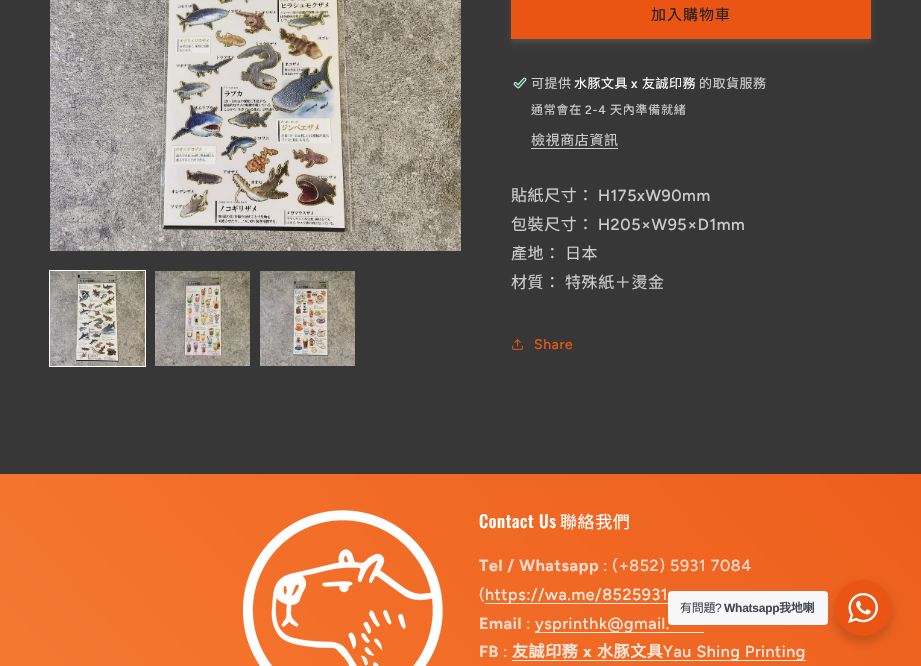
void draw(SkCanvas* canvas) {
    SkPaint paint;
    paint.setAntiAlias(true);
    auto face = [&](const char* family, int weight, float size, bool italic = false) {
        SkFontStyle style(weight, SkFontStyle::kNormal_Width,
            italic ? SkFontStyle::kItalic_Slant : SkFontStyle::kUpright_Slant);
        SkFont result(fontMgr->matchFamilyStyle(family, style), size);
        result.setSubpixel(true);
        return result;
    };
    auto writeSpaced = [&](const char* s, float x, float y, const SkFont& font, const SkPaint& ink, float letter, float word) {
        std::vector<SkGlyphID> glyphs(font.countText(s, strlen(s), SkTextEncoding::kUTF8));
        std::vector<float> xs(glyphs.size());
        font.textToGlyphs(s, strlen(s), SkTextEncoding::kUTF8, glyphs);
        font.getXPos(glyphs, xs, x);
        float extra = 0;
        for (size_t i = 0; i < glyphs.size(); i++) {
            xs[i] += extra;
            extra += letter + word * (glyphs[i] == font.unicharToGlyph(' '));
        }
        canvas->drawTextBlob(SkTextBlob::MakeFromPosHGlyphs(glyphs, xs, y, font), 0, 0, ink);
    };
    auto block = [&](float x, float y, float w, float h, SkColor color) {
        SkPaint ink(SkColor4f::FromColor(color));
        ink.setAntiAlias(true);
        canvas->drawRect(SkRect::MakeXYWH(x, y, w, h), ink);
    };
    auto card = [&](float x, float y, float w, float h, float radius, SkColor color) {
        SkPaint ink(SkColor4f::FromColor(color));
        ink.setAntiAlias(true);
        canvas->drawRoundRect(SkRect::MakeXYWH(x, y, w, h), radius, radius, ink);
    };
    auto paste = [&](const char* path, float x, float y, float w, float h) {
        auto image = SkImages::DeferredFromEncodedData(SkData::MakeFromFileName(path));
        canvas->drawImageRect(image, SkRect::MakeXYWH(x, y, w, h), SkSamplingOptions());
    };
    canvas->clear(SkColorSetRGB(55, 55, 56));
    paste("pic1.png", 50, 0, 411, 251);
    paint.setStyle(SkPaint::kStroke_Style);
    paint.setStrokeWidth(1);
    paint.setColor(SK_ColorWHITE);
    canvas->drawRect(SkRect::MakeXYWH(49.5f, 270.5f, 96, 96), paint);
    paste("pic2.png", 50, 271, 95, 95);
    paste("pic3.png", 155, 271, 95, 95);
    paste("pic4.png", 260, 271, 95, 95);
    paint.setStyle(SkPaint::kFill_Style);
    paint.setColor(SkColorSetARGB(26, 255, 255, 255));
    paint.setMaskFilter(SkMaskFilter::MakeBlur(kNormal_SkBlurStyle, 2.5f));
    canvas->drawRect(SkRect::MakeXYWH(511, -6, 360, 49), paint);
    paint.setMaskFilter(nullptr);
    block(511, 0, 360, 39, SkColorSetRGB(234, 85, 20));
    auto kFont1 = face("Noto Sans CJK TC", 400, 15);
    paint.setColor(SkColorSetRGB(31, 31, 33));
    writeSpaced("加入購物車", 651, 20, kFont1, paint, 1, 0);
    paste("pic5.png", 513, 77, 14, 12);
    auto kFont2 = face("Noto Sans CJK TC", 400, 13);
    paint.setColor(SkColorSetRGB(205, 205, 205));
    writeSpaced("可提供", 531, 88, kFont2, paint, 0.5f, 0);
    paint.setColor(SK_ColorWHITE);
    writeSpaced("水豚文具", 574, 88, kFont2, paint, 0.5f, 0);
    auto kFont3 = face("Figtree", 500, 13);
    writeSpaced("x", 631, 88, kFont3, paint, 0.5f, 0);
    writeSpaced("友誠印務", 642, 88, kFont2, paint, 0.5f, 0);
    paint.setColor(SkColorSetRGB(205, 205, 205));
    writeSpaced("的取貨服務", 699, 88, kFont2, paint, 0.5f, 0);
    auto kFont4 = face("Noto Sans CJK TC", 400, 12);
    writeSpaced("通常會在", 531, 114, kFont4, paint, 0.75f, 0);
    auto kFont5 = face("Figtree", 500, 12);
    writeSpaced("2-4", 585, 114, kFont5, paint, 0.75f, 0);
    writeSpaced("天內準備就緒", 610, 114, kFont4, paint, 0.75f, 0);
    auto kFont6 = face("Noto Sans CJK TC", 400, 14);
    writeSpaced("檢視商店資訊", 531, 145, kFont6, paint, 0.6f, 0);
    block(531, 148, 87, 1, SkColorSetRGB(205, 205, 205));
    auto kFont7 = face("Noto Sans CJK TC", 400, 16);
    writeSpaced("貼紙尺寸：", 511, 201, kFont7, paint, 0.6f, 0);
    auto kFont8 = face("Figtree", 500, 16);
    writeSpaced("H175xW90mm", 598, 201, kFont8, paint, 0.6f, 0);
    writeSpaced("包裝尺寸：", 511, 230, kFont7, paint, 0.6f, 0);
    writeSpaced("H205×W95×D1mm", 598, 230, kFont8, paint, 0.6f, 0);
    writeSpaced("產地：", 511, 259, kFont7, paint, 0.6f, 0);
    writeSpaced("日本", 565, 259, kFont7, paint, 0.6f, 0);
    writeSpaced("材質：", 511, 288, kFont7, paint, 0.6f, 0);
    writeSpaced("特殊紙＋燙金", 565, 288, kFont7, paint, 0.6f, 0);
    paste("pic6.png", 512, 339, 11, 11);
    auto kFont9 = face("Figtree", 500, 14);
    paint.setColor(SkColorSetRGB(234, 85, 20));
    writeSpaced("Share", 534, 349, kFont9, paint, 0.6f, 0);
    {
        const SkColor colors[] = {SkColorSetRGB(234, 85, 20), SkColorSetRGB(245, 120, 49)};
        const float stops[] = {0.03f, 1};
        const SkPoint ends[] = {{880, -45}, {41, 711}};
        paint.setShader(SkGradientShader::MakeLinear(ends, colors, stops, 2, SkTileMode::kClamp));
        paint.setAlpha(255);
    }
    canvas->drawRect(SkRect::MakeXYWH(0, 474, 921, 192), paint);
    {
        const SkColor colors[] = {SkColorSetRGB(252, 230, 220), SkColorSetRGB(254, 235, 224)};
        const float stops[] = {0.03f, 1};
        const SkPoint ends[] = {{880, -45}, {41, 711}};
        paint.setShader(SkGradientShader::MakeLinear(ends, colors, stops, 2, SkTileMode::kClamp));
        paint.setAlpha(255);
    }
    canvas->drawRect(SkRect::MakeXYWH(663, 660, 143, 1), paint);
    canvas->drawRect(SkRect::MakeXYWH(512, 660, 151, 1), paint);
    canvas->drawRect(SkRect::MakeXYWH(535, 632, 169, 1), paint);
    canvas->drawRect(SkRect::MakeXYWH(485, 603, 183, 1), paint);
    paste("pic7.png", 243, 510, 200, 156);
    auto kFont10 = face("Oswald", 500, 17);
    paint.setShader(nullptr);
    paint.setColor(SK_ColorWHITE);
    writeSpaced("Contact Us", 479, 528, kFont10, paint, 0.6f, 0);
    auto kFont11 = face("Noto Sans CJK TC", 400, 17);
    writeSpaced("聯絡我們", 560, 528, kFont11, paint, 0.6f, 0);
    auto kFont12 = face("Figtree", 700, 16);
    paint.setColor(SkColorSetRGB(251, 217, 200));
    writeSpaced("Tel / Whatsapp", 479, 571, kFont12, paint, 0.6f, 0);
    writeSpaced(": (+852) 5931 7084", 603, 571, kFont8, paint, 0.6f, 0);
    writeSpaced("(", 479, 600, kFont8, paint, 0.6f, 0);
    paint.setColor(SkColorSetRGB(253, 232, 222));
    writeSpaced("https://wa.me/8525931", 485, 600, kFont8, paint, 0.6f, 0);
    paint.setColor(SkColorSetRGB(251, 217, 200));
    writeSpaced("Email", 479, 629, kFont12, paint, 0.6f, 0);
    writeSpaced(":", 526, 629, kFont8, paint, 0.6f, 0);
    paint.setColor(SkColorSetRGB(253, 232, 222));
    writeSpaced("ysprinthk@gmail.", 535, 629, kFont8, paint, 0.6f, 0);
    paint.setColor(SkColorSetRGB(251, 217, 200));
    writeSpaced("FB", 479, 657, kFont12, paint, 0.6f, 0);
    writeSpaced(":", 503, 657, kFont8, paint, 0.6f, 0);
    auto kFont13 = face("Noto Sans CJK TC", 700, 16);
    paint.setColor(SkColorSetRGB(253, 232, 222));
    writeSpaced("友誠印務", 512, 657, kFont13, paint, 0.6f, 0);
    writeSpaced("x", 583, 657, kFont12, paint, 0.6f, 0);
    writeSpaced("水豚文具", 597, 657, kFont13, paint, 0.6f, 0);
    writeSpaced("Yau Shing Printing", 663, 657, kFont8, paint, 0.6f, 0);
    paint.setColor(SkColorSetARGB(36, 0, 0, 0));
    paint.setMaskFilter(SkMaskFilter::MakeBlur(kNormal_SkBlurStyle, 4));
    canvas->drawRoundRect(SkRect::MakeXYWH(833, 584, 60, 60), 30, 30, paint);
    paint.setMaskFilter(nullptr);
    card(668, 591, 160, 34, 4, SkColorSetRGB(245, 247, 249));
    paint.setColor(SkColorSetRGB(67, 71, 78));
    writeSpaced("有問題", 680, 612, kFont4, paint, -0.25f, 0);
    auto kFont14 = face("Liberation Sans", 400, 12);
    writeSpaced("?", 715, 612, kFont14, paint, -0.25f, 0);
    auto kFont15 = face("Liberation Sans", 700, 12);
    writeSpaced("Whatsapp", 724, 612, kFont15, paint, -0.25f, 0);
    auto kFont16 = face("Noto Sans CJK TC", 700, 12);
    writeSpaced("我地喇", 779, 612, kFont16, paint, -0.25f, 0);
    paint.setColor(SkColorSetRGB(234, 85, 20));
    canvas->drawCircle(863, 608, 28, paint);
    paste("pic8.png", 848, 593, 30, 30);
}
